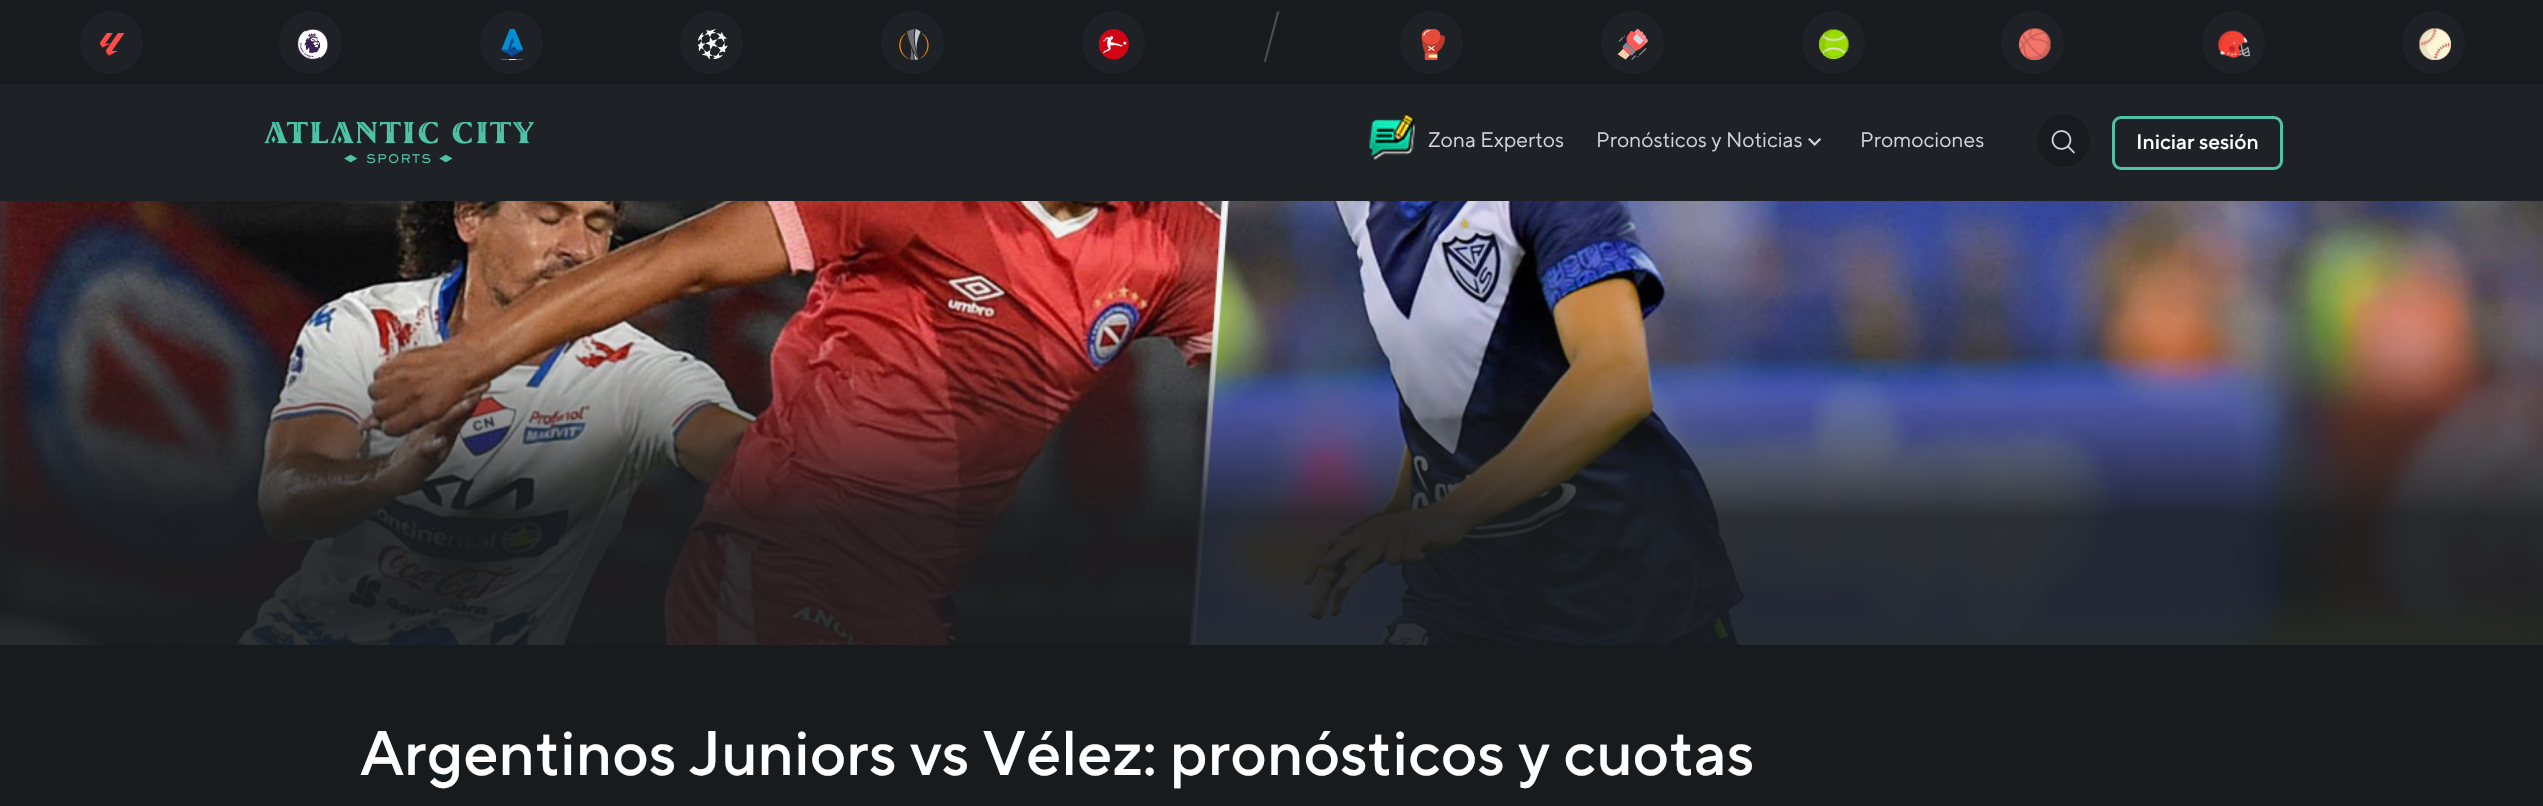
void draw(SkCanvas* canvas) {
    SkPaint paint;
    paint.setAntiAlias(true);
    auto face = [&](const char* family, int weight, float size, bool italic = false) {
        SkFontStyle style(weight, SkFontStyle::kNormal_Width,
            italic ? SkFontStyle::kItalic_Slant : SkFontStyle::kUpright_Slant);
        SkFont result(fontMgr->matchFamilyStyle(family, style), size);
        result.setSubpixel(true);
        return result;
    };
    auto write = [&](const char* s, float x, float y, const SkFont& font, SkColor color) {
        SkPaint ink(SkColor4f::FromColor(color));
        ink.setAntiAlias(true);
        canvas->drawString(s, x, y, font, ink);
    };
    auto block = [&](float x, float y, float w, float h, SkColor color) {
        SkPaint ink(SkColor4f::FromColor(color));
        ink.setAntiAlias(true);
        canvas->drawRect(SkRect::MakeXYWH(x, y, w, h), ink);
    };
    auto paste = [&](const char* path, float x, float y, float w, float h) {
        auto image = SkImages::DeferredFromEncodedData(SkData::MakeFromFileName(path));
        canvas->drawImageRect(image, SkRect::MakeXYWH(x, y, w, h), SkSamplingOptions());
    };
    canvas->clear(SkColorSetRGB(24, 27, 30));
    paint.setColor(SkColorSetRGB(30, 34, 38));
    canvas->drawCircle(111.5f, 42.5f, 31.5f, paint);
    paste("pic1.png", 100, 33, 25, 23);
    canvas->drawCircle(310.5f, 42.5f, 31.5f, paint);
    paste("pic2.png", 297, 29, 31, 31);
    canvas->drawCircle(511.5f, 42.5f, 31.5f, paint);
    paste("pic3.png", 501, 29, 22, 31);
    canvas->drawCircle(711.5f, 42.5f, 31.5f, paint);
    paste("pic4.png", 698, 29, 30, 30);
    canvas->drawCircle(912.5f, 42.5f, 31.5f, paint);
    paste("pic5.png", 899, 29, 30, 31);
    canvas->drawCircle(1113.5f, 42.5f, 31.5f, paint);
    paste("pic6.png", 1099, 29, 30, 30);
    paint.setColor(SkColorSetRGB(73, 79, 81));
    canvas->drawPath(SkPathBuilder().moveTo(1279, 11).cubicTo(1279, 12, 1280, 12, 1279, 13).lineTo(1266, 61).cubicTo(1266, 62, 1266, 62, 1265, 62).cubicTo(1265, 62, 1264, 61, 1264, 61).lineTo(1277, 12).cubicTo(1278, 12, 1278, 11, 1279, 11).close().detach(), paint);
    paint.setColor(SkColorSetRGB(30, 34, 38));
    canvas->drawCircle(1431.5f, 42.5f, 31.5f, paint);
    paste("pic7.png", 1421, 29, 24, 31);
    canvas->drawCircle(1632.5f, 42.5f, 31.5f, paint);
    paste("pic8.png", 1617, 29, 31, 31);
    canvas->drawCircle(1833.5f, 42.5f, 31.5f, paint);
    paste("pic9.png", 1819, 29, 30, 31);
    canvas->drawCircle(2032.5f, 42.5f, 31.5f, paint);
    paste("pic10.png", 2019, 28, 32, 32);
    canvas->drawCircle(2233.5f, 42.5f, 31.5f, paint);
    paste("pic11.png", 2218, 30, 32, 29);
    canvas->drawCircle(2433.5f, 42.5f, 31.5f, paint);
    paste("pic12.png", 2419, 28, 32, 32);
    block(0, 84, 2543, 117, SkColorSetRGB(30, 34, 38));
    paste("pic13.png", 264, 122, 270, 42);
    paste("pic14.png", 1369, 114, 46, 46);
    auto kFont1 = face("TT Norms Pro", 400, 21);
    write("Zona Expertos", 1428, 147, kFont1, SkColorSetRGB(209, 213, 219));
    write("Pronósticos y Noticias", 1596, 147, kFont1, SkColorSetRGB(209, 213, 219));
    paste("pic15.png", 1808, 138, 14, 8);
    write("Promociones", 1860, 147, kFont1, SkColorSetRGB(209, 213, 219));
    paint.setColor(SkColorSetRGB(24, 27, 30));
    canvas->drawCircle(2063.5f, 140.5f, 26.5f, paint);
    paste("pic16.png", 2051, 130, 24, 24);
    paint.setStyle(SkPaint::kStroke_Style);
    paint.setStrokeWidth(3);
    paint.setColor(SkColorSetRGB(79, 193, 167));
    canvas->drawRoundRect(SkRect::MakeXYWH(2113.5f, 117.5f, 168, 51), 7.5f, 7.5f, paint);
    auto kFont2 = face("TT Norms Pro", 500, 21);
    write("Iniciar sesión", 2136, 149, kFont2, SK_ColorWHITE);
    paste("pic17.png", 0, 201, 2543, 444);
    auto kFont3 = face("TT Norms Pro", 500, 63);
    write("Argentinos Juniors vs Vélez: pronósticos y cuotas", 360, 775, kFont3, SK_ColorWHITE);
}
